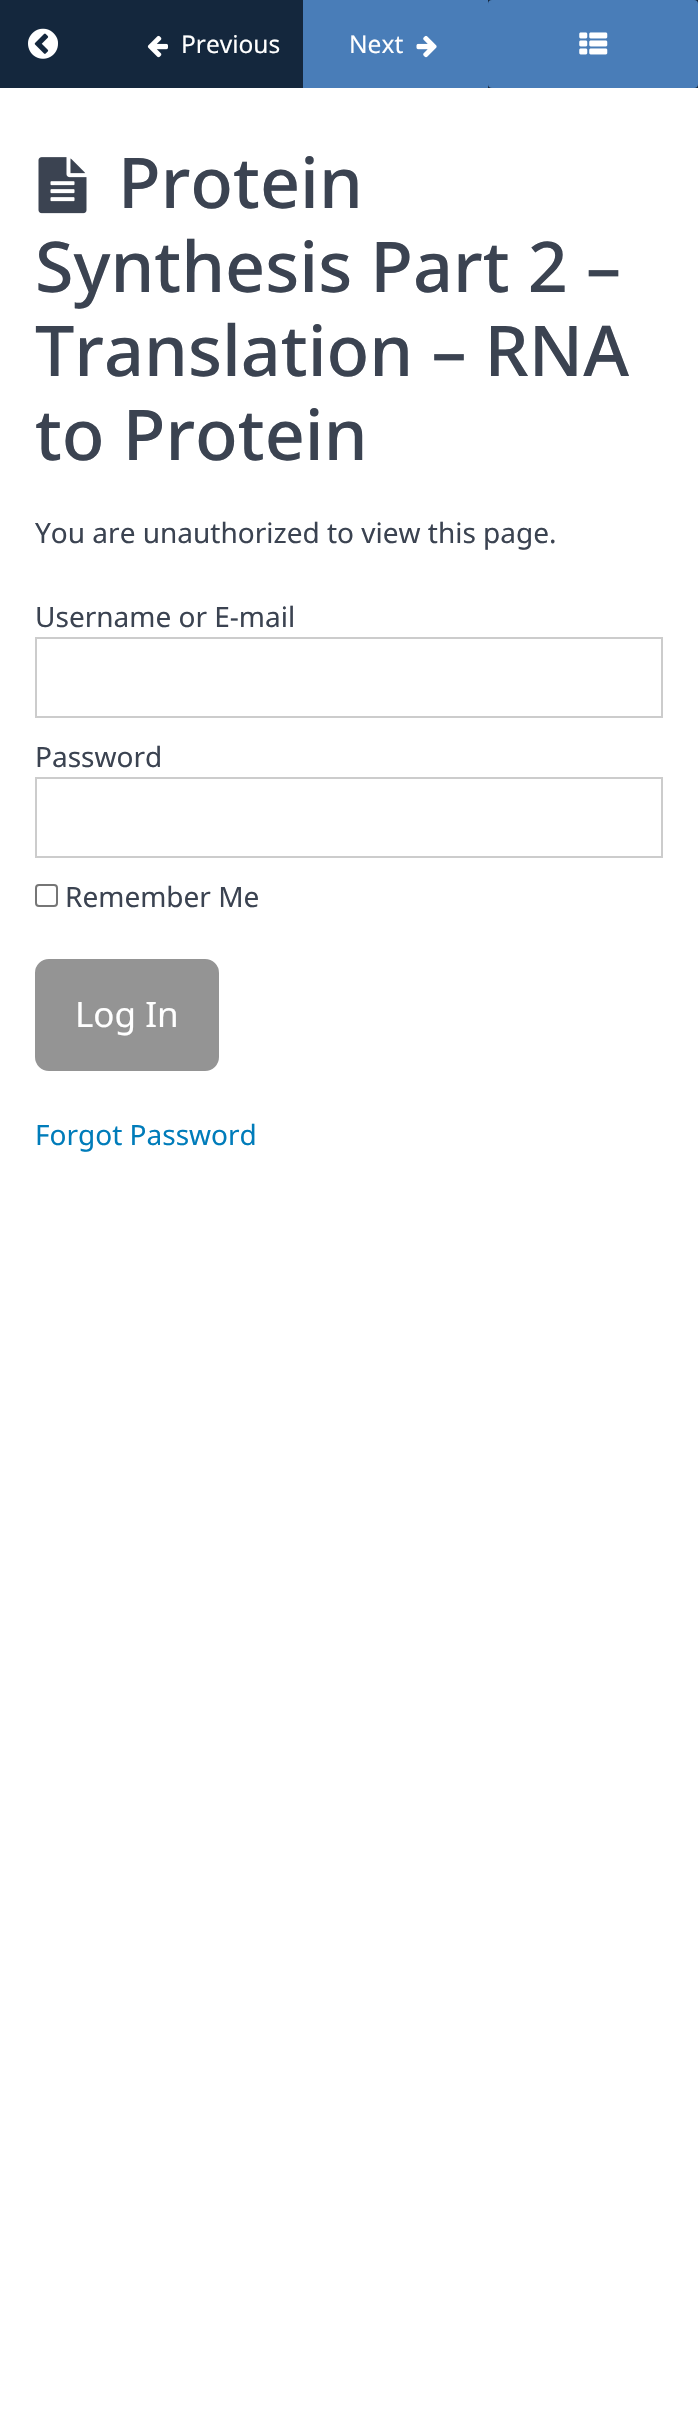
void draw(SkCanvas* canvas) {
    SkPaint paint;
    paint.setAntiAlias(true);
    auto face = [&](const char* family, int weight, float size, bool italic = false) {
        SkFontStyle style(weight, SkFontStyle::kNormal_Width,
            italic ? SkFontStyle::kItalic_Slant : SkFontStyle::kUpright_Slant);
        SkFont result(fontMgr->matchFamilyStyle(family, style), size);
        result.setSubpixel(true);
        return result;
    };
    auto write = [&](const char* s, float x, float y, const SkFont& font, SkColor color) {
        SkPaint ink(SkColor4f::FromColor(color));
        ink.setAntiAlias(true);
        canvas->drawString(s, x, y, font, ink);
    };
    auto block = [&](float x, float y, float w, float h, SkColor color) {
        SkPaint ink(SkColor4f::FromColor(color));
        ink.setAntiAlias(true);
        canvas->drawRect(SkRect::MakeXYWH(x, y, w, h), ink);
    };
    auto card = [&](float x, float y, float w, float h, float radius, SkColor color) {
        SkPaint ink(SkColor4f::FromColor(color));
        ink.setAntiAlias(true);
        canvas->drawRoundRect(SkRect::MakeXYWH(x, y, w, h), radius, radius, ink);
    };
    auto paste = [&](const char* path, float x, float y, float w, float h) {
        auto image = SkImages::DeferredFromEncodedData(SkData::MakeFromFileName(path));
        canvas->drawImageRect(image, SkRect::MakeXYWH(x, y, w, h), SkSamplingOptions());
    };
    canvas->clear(SK_ColorWHITE);
    block(0, 0, 698, 88, SkColorSetRGB(20, 39, 61));
    paste("pic1.png", 28, 28, 30, 31);
    paste("pic2.png", 147, 35, 21, 23);
    auto kFont1 = face("Noto Sans", 400, 24.5f);
    write("Previous", 181, 53, kFont1, SK_ColorWHITE);
    block(303, 0, 185, 88, SkColorSetRGB(73, 125, 184));
    write("Next", 349, 53, kFont1, SK_ColorWHITE);
    paste("pic3.png", 416, 35, 21, 23);
    card(488, 0, 210, 88, 4, SkColorSetRGB(73, 125, 184));
    paste("pic4.png", 579, 32, 29, 23);
    paste("pic5.png", 38, 157, 49, 57);
    auto kFont2 = face("Noto Sans", 500, 70);
    write("Protein", 118, 208, kFont2, SkColorSetRGB(59, 67, 81));
    write("Synthesis Part 2 –", 35, 292, kFont2, SkColorSetRGB(59, 67, 81));
    write("Translation – RNA", 35, 376, kFont2, SkColorSetRGB(59, 67, 81));
    write("to Protein", 35, 460, kFont2, SkColorSetRGB(59, 67, 81));
    auto kFont3 = face("Noto Sans", 400, 28);
    write("You are unauthorized to view this page.", 35, 543, kFont3, SkColorSetRGB(59, 67, 81));
    write("Username or E-mail", 35, 627, kFont3, SkColorSetRGB(59, 67, 81));
    paint.setStyle(SkPaint::kStroke_Style);
    paint.setStrokeWidth(2);
    paint.setColor(SkColorSetRGB(204, 204, 204));
    canvas->drawRect(SkRect::MakeXYWH(36, 638, 626, 79), paint);
    write("Password", 35, 767, kFont3, SkColorSetRGB(59, 67, 81));
    canvas->drawRect(SkRect::MakeXYWH(36, 778, 626, 79), paint);
    paint.setColor(SkColorSetRGB(118, 118, 118));
    canvas->drawRoundRect(SkRect::MakeXYWH(36, 885, 21, 21), 3, 3, paint);
    write("Remember Me", 65, 907, kFont3, SkColorSetRGB(59, 67, 81));
    paint.setStyle(SkPaint::kFill_Style);
    paint.setColor(SkColorSetRGB(148, 148, 148));
    canvas->drawRoundRect(SkRect::MakeXYWH(36, 960, 182, 110), 13, 13, paint);
    paint.setStyle(SkPaint::kStroke_Style);
    canvas->drawRoundRect(SkRect::MakeXYWH(36, 960, 182, 110), 13, 13, paint);
    auto kFont4 = face("Noto Sans", 400, 35);
    write("Log In", 75, 1027, kFont4, SK_ColorWHITE);
    write("Forgot Password", 35, 1145, kFont3, SkColorSetRGB(0, 124, 186));
}
